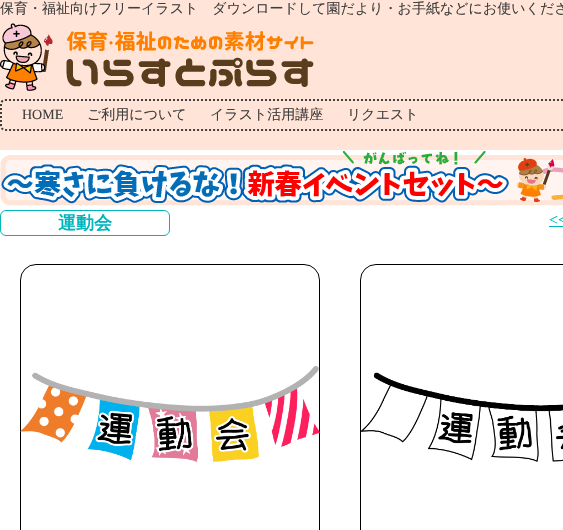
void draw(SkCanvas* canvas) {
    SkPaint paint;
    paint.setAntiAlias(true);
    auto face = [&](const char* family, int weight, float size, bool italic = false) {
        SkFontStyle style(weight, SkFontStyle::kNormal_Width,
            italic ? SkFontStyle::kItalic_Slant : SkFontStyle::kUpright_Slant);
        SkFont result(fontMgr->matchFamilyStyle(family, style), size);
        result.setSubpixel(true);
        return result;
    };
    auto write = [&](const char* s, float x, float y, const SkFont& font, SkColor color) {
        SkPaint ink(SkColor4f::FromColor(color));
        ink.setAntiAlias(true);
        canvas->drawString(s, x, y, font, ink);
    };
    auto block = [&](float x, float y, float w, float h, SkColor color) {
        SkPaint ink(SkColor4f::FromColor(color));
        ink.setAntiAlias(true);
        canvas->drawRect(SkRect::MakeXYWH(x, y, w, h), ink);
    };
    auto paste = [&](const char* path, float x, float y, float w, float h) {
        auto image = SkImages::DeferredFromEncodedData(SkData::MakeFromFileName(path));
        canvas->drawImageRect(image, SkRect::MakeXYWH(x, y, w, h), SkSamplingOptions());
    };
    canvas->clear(SK_ColorWHITE);
    block(0, 0, 563, 150, SkColorSetRGB(255, 228, 215));
    auto kFont1 = face("WenQuanYi Zen Hei", 500, 14);
    write("保育・福祉向けフリーイラスト　ダウンロードして園だより・お手紙などにお使いくださ", 0, 13, kFont1, SkColorSetRGB(63, 63, 63));
    paste("pic1.png", 0, 23, 314, 68);
    paint.setStyle(SkPaint::kStroke_Style);
    paint.setStrokeWidth(2);
    paint.setColor(SkColorSetRGB(63, 63, 63));
    paint.setPathEffect(SkDashPathEffect::Make({{2, 2}}, 0));
    canvas->drawPath(SkPathBuilder().moveTo(5, 100).lineTo(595, 100).cubicTo(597, 100, 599, 102, 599, 104).lineTo(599, 126).cubicTo(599, 128, 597, 130, 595, 130).lineTo(5, 130).cubicTo(3, 130, 1, 128, 1, 126).lineTo(1, 104).cubicTo(1, 102, 3, 100, 5, 100).close().detach(), paint);
    paint.setPathEffect(nullptr);
    auto kFont2 = face("Liberation Serif", 400, 14);
    write("HOME", 22, 119, kFont2, SkColorSetRGB(63, 63, 63));
    write("ご利用について", 87, 119, kFont1, SkColorSetRGB(63, 63, 63));
    write("イラスト活用講座", 210, 119, kFont1, SkColorSetRGB(63, 63, 63));
    write("リクエスト", 347, 119, kFont1, SkColorSetRGB(63, 63, 63));
    paste("pic2.png", 0, 151, 563, 55);
    paint.setStrokeWidth(1);
    paint.setColor(SkColorSetRGB(0, 181, 190));
    canvas->drawRoundRect(SkRect::MakeXYWH(0.5f, 210.5f, 169, 25), 5.5f, 5.5f, paint);
    auto kFont3 = face("WenQuanYi Zen Hei", 700, 18);
    write("運動会", 58, 229, kFont3, SkColorSetRGB(0, 181, 190));
    auto kFont4 = face("Liberation Serif", 400, 16);
    write("<<", 549, 225, kFont4, SkColorSetRGB(0, 181, 190));
    block(549, 226, 14, 1, SkColorSetRGB(0, 181, 190));
    paint.setColor(SK_ColorBLACK);
    canvas->drawRoundRect(SkRect::MakeXYWH(20.5f, 264.5f, 299, 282), 15.5f, 15.5f, paint);
    paste("pic3.png", 20, 366, 300, 96);
    canvas->drawRoundRect(SkRect::MakeXYWH(360.5f, 264.5f, 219, 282), 15.5f, 15.5f, paint);
    paste("pic4.png", 361, 372, 202, 90);
}
